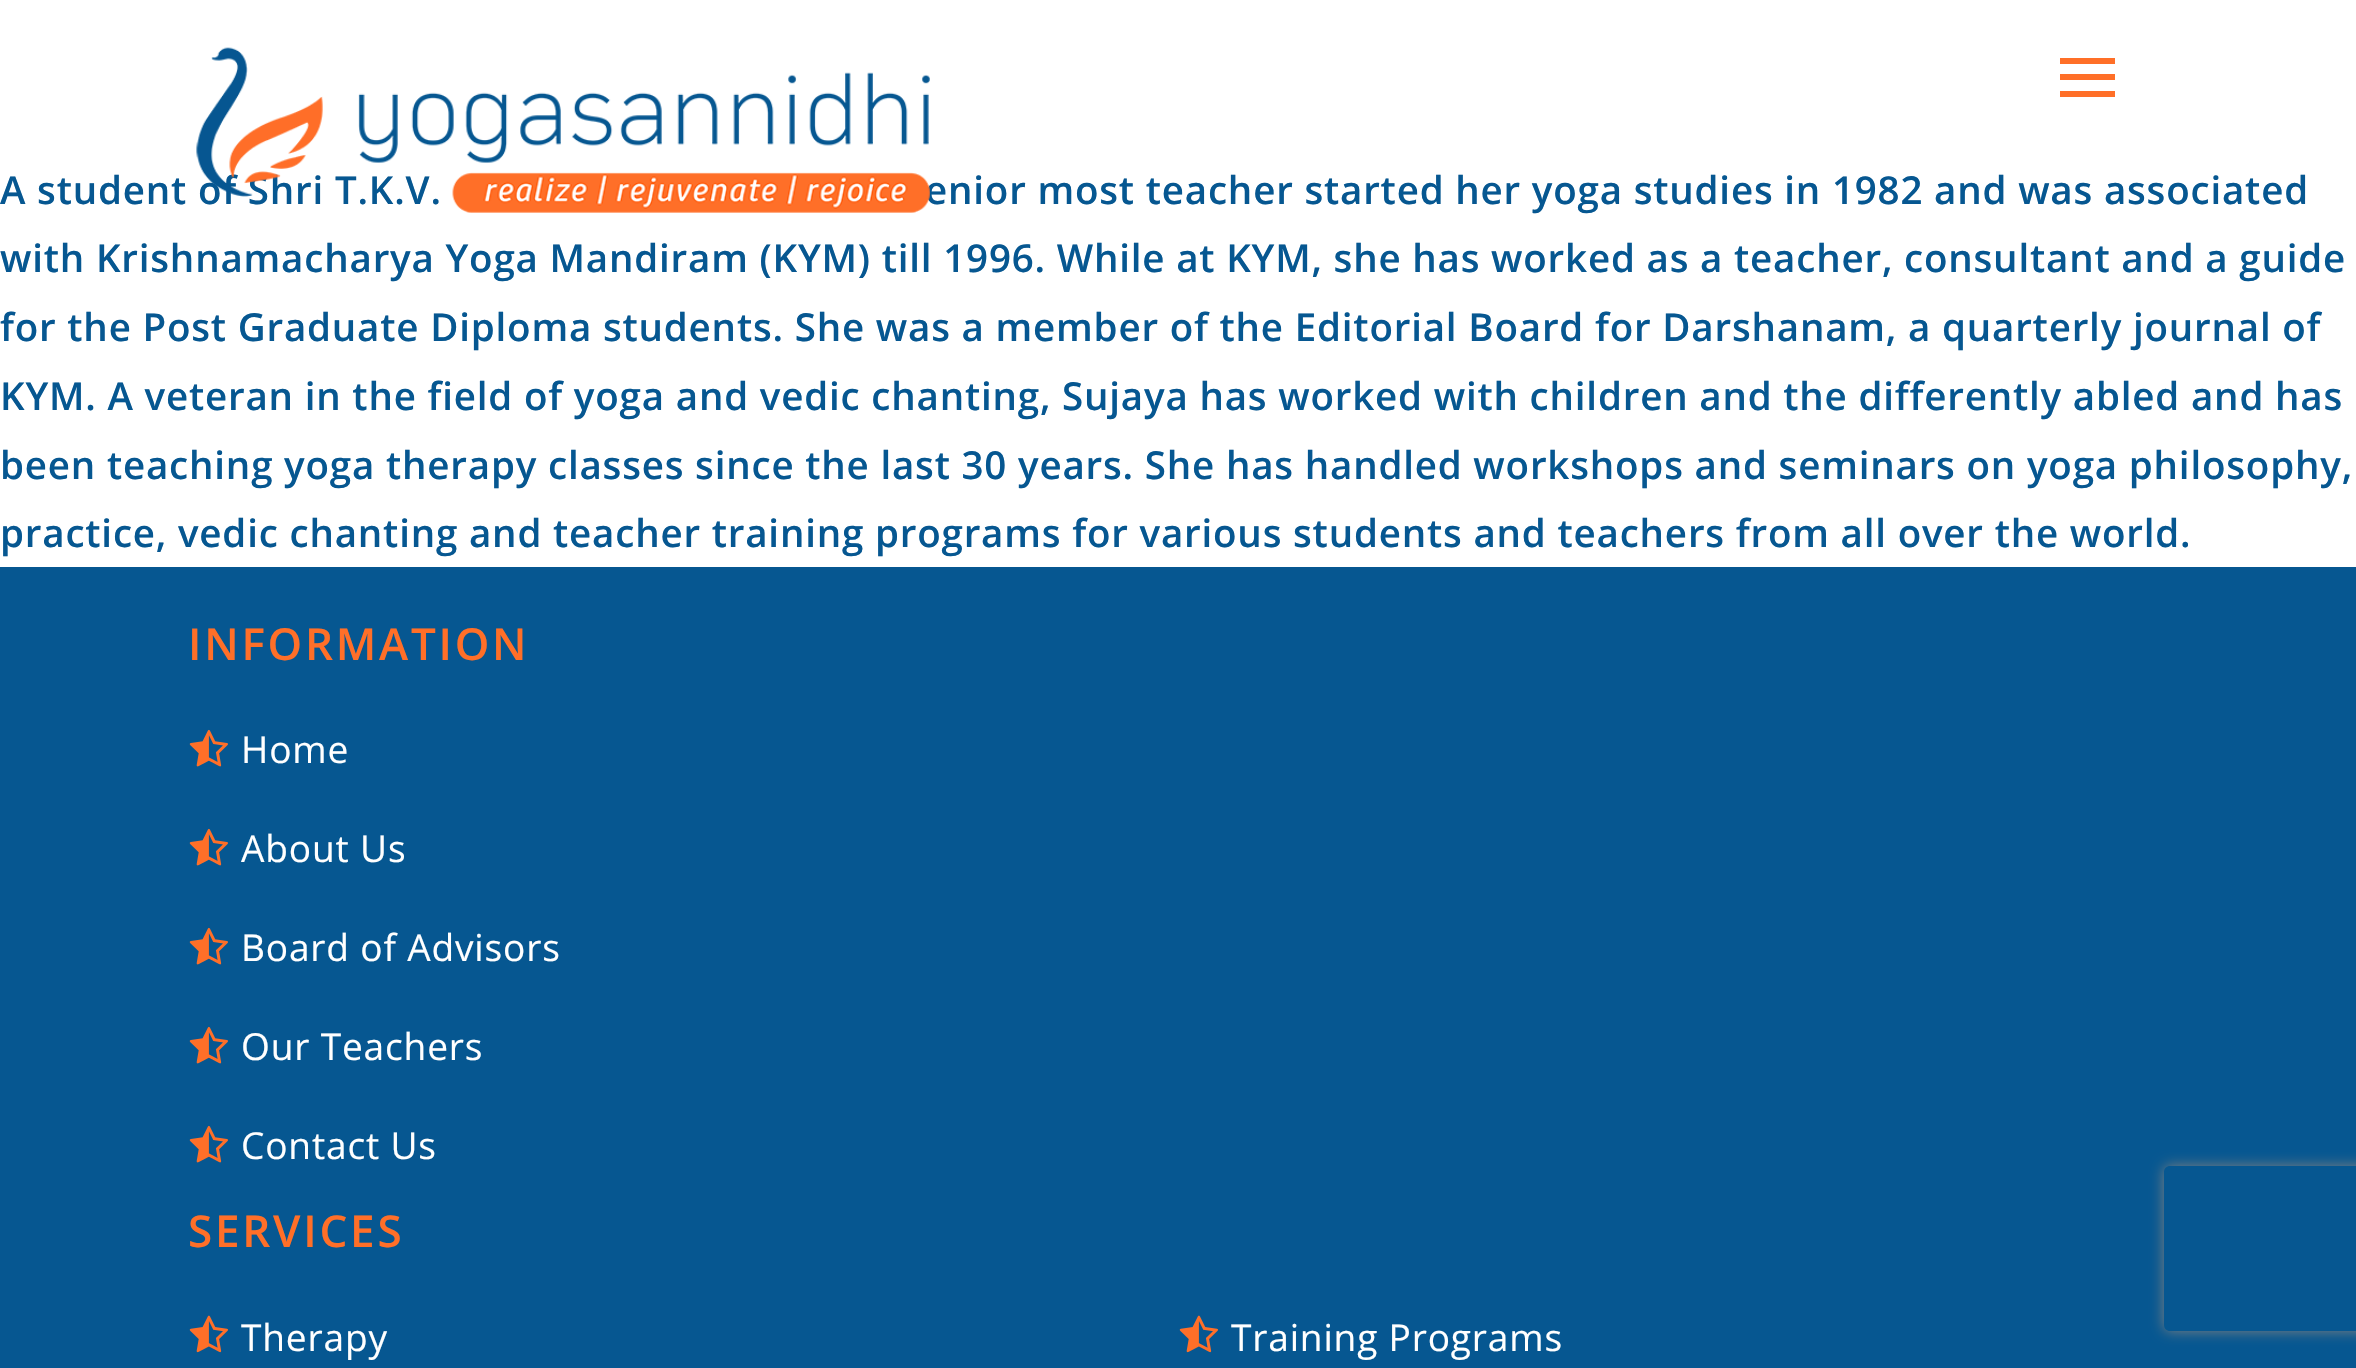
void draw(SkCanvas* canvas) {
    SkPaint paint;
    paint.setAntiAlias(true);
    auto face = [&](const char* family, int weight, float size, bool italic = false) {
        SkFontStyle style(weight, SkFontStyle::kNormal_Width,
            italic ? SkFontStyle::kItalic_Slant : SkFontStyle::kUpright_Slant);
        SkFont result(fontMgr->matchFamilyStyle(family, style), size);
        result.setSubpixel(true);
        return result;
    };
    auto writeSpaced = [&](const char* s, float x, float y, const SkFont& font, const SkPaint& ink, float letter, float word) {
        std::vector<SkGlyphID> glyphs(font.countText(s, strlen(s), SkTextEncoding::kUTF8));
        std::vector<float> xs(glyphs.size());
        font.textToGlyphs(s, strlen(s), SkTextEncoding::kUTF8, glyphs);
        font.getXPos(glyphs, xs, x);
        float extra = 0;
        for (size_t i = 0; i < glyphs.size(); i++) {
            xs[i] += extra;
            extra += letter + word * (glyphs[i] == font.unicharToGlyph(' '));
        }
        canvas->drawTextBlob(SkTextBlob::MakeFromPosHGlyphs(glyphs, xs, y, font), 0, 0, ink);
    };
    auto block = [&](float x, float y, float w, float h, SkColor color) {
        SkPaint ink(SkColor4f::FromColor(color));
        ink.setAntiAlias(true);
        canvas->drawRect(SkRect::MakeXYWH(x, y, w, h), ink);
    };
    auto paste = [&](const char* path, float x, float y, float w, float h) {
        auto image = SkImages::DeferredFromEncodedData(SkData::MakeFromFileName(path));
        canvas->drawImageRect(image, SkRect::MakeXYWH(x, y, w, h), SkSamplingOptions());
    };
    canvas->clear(SK_ColorWHITE);
    auto kFont1 = face("Open Sans", 600, 38.5f);
    paint.setColor(SkColorSetRGB(6, 87, 145));
    writeSpaced("A student of Shri T.K.V.", 0, 204, kFont1, paint, 0.82f, 0);
    writeSpaced("enior most teacher started her yoga studies in 1982 and was associated", 925, 204, kFont1, paint, 0.82f, 0);
    paste("pic1.png", 196, 47, 734, 166);
    block(2060, 58, 55, 6, SkColorSetRGB(255, 111, 40));
    block(2060, 74, 55, 6, SkColorSetRGB(255, 111, 40));
    block(2060, 91, 55, 6, SkColorSetRGB(255, 111, 40));
    writeSpaced("with Krishnamacharya Yoga Mandiram (KYM) till 1996. While at KYM, she has worked as a teacher, consultant and a guide", 0, 272, kFont1, paint, 0.82f, 0);
    writeSpaced("for the Post Graduate Diploma students. She was a member of the Editorial Board for Darshanam, a quarterly journal of", 0, 341, kFont1, paint, 0.82f, 0);
    writeSpaced("KYM. A veteran in the field of yoga and vedic chanting, Sujaya has worked with children and the differently abled and has", 0, 410, kFont1, paint, 0.82f, 0);
    writeSpaced("been teaching yoga therapy classes since the last 30 years. She has handled workshops and seminars on yoga philosophy,", 0, 479, kFont1, paint, 0.82f, 0);
    writeSpaced("practice, vedic chanting and teacher training programs for various students and teachers from all over the world.", 0, 547, kFont1, paint, 0.82f, 0);
    block(0, 567, 2356, 801, SkColorSetRGB(6, 87, 145));
    auto kFont2 = face("Open Sans", 600, 44);
    paint.setColor(SkColorSetRGB(255, 111, 40));
    writeSpaced("INFORMATION", 188, 660, kFont2, paint, 2.75f, 0);
    paste("pic2.png", 189, 729, 39, 38);
    auto kFont3 = face("Open Sans", 400, 37.1f);
    paint.setColor(SK_ColorWHITE);
    writeSpaced("Home", 241, 763, kFont3, paint, 0.82f, 0);
    paste("pic2.png", 189, 828, 39, 38);
    writeSpaced("About Us", 241, 862, kFont3, paint, 0.82f, 0);
    paste("pic2.png", 189, 927, 39, 38);
    writeSpaced("Board of Advisors", 241, 961, kFont3, paint, 0.82f, 0);
    paste("pic2.png", 189, 1026, 39, 38);
    writeSpaced("Our Teachers", 241, 1060, kFont3, paint, 0.82f, 0);
    paste("pic2.png", 189, 1125, 39, 38);
    writeSpaced("Contact Us", 241, 1159, kFont3, paint, 0.82f, 0);
    paint.setColor(SkColorSetRGB(255, 111, 40));
    writeSpaced("SERVICES", 188, 1247, kFont2, paint, 2.75f, 0);
    paste("pic3.png", 189, 1315, 39, 38);
    paint.setColor(SK_ColorWHITE);
    writeSpaced("Therapy", 241, 1351, kFont3, paint, 0.82f, 0);
    paste("pic3.png", 1179, 1315, 39, 38);
    writeSpaced("Training Programs", 1231, 1351, kFont3, paint, 0.82f, 0);
    canvas->save();
    canvas->clipPath(SkPathBuilder(SkPathFillType::kEvenOdd).moveTo(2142, 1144).lineTo(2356, 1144).lineTo(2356, 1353).lineTo(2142, 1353).close().moveTo(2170, 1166).lineTo(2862, 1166).cubicTo(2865.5f, 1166, 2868, 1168.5f, 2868, 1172).lineTo(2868, 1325).cubicTo(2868, 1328.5f, 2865.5f, 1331, 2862, 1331).lineTo(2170, 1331).cubicTo(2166.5f, 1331, 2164, 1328.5f, 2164, 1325).lineTo(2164, 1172).cubicTo(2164, 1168.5f, 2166.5f, 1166, 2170, 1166).close().detach(), true);
    paint.setColor(SkColorSetRGB(128, 128, 128));
    paint.setMaskFilter(SkMaskFilter::MakeBlur(kNormal_SkBlurStyle, 7));
    canvas->drawRoundRect(SkRect::MakeXYWH(2164, 1166, 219, 165), 6, 6, paint);
    paint.setMaskFilter(nullptr);
    canvas->restore();
}
